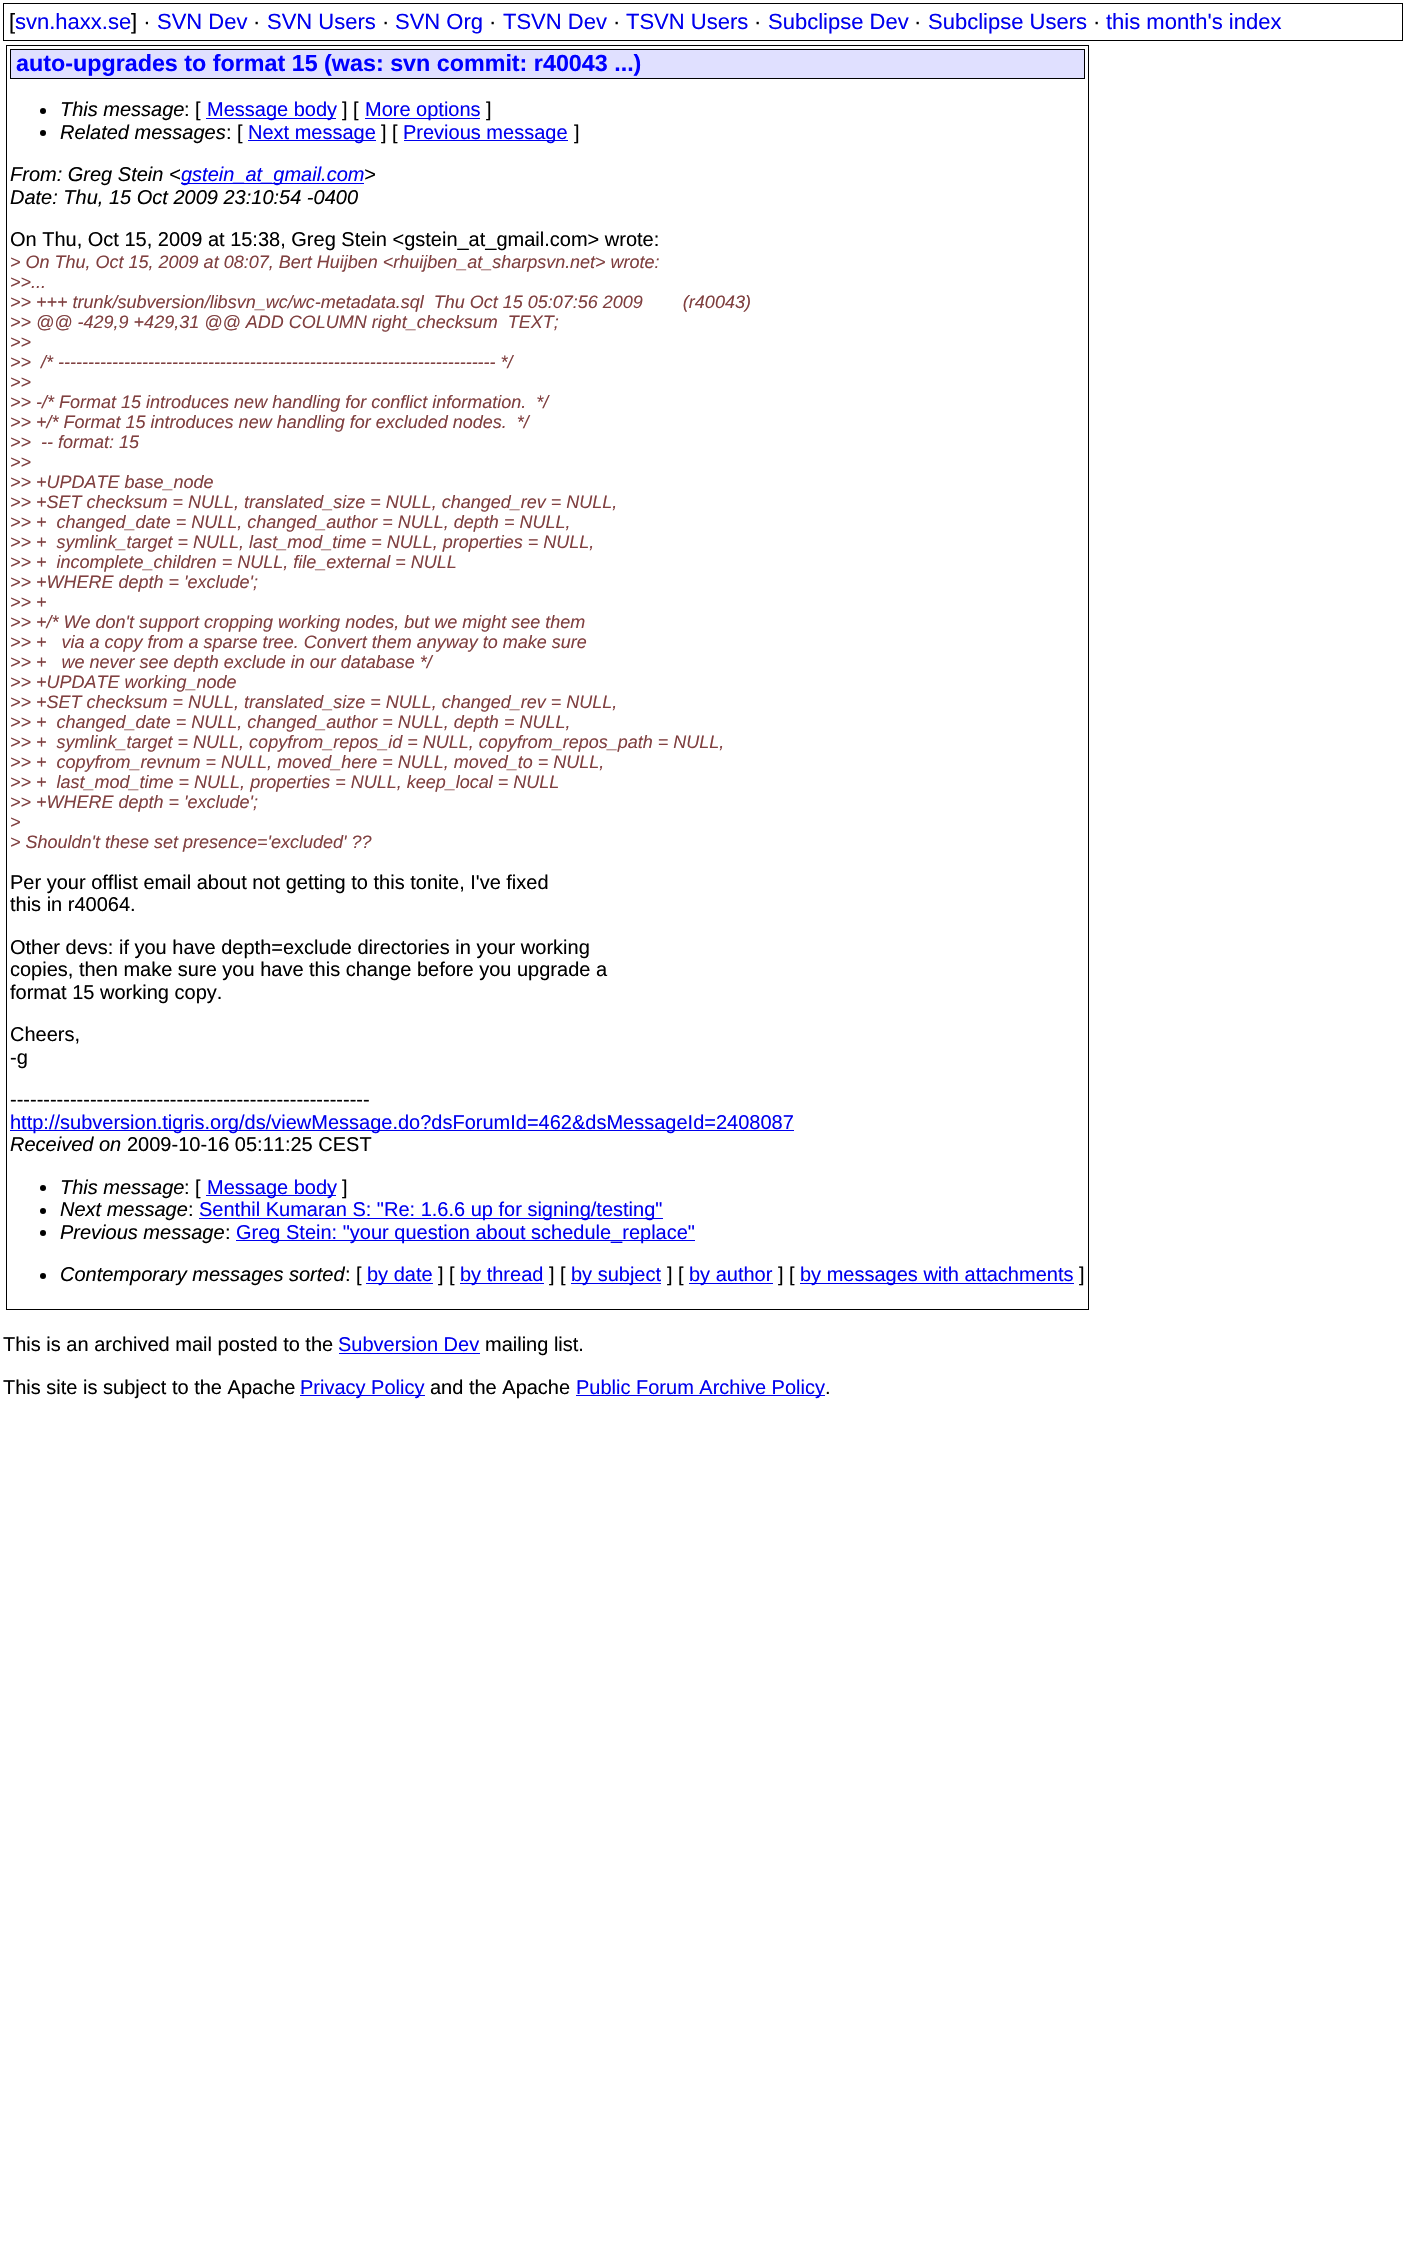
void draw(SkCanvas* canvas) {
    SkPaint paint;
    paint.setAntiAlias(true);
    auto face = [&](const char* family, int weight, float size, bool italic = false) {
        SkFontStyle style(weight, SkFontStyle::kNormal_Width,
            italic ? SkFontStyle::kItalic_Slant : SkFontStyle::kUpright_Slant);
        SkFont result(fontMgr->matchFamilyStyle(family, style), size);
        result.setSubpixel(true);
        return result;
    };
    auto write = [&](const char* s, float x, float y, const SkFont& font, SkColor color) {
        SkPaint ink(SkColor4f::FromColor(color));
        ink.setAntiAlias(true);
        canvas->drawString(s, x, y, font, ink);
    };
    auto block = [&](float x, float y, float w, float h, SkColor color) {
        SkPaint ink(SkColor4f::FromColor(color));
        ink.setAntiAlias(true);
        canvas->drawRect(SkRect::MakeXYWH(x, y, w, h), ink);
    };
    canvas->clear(SK_ColorWHITE);
    paint.setStyle(SkPaint::kStroke_Style);
    paint.setStrokeWidth(1);
    paint.setColor(SK_ColorBLACK);
    canvas->drawRect(SkRect::MakeXYWH(3.5f, 3.5f, 1399, 37), paint);
    auto kFont1 = face("Liberation Sans", 400, 22);
    write("[", 9, 29, kFont1, SK_ColorBLACK);
    write("svn.haxx.se", 15, 29, kFont1, SkColorSetRGB(0, 0, 238));
    write("] ·", 131, 29, kFont1, SK_ColorBLACK);
    write("SVN Dev", 157, 29, kFont1, SkColorSetRGB(0, 0, 238));
    write("·", 253, 29, kFont1, SK_ColorBLACK);
    write("SVN Users", 267, 29, kFont1, SkColorSetRGB(0, 0, 238));
    write("·", 382, 29, kFont1, SK_ColorBLACK);
    write("SVN Org", 395, 29, kFont1, SkColorSetRGB(0, 0, 238));
    write("·", 489, 29, kFont1, SK_ColorBLACK);
    write("TSVN Dev", 503, 29, kFont1, SkColorSetRGB(0, 0, 238));
    write("·", 613, 29, kFont1, SK_ColorBLACK);
    write("TSVN Users", 626, 29, kFont1, SkColorSetRGB(0, 0, 238));
    write("·", 754, 29, kFont1, SK_ColorBLACK);
    write("Subclipse Dev", 768, 29, kFont1, SkColorSetRGB(0, 0, 238));
    write("·", 914, 29, kFont1, SK_ColorBLACK);
    write("Subclipse Users", 928, 29, kFont1, SkColorSetRGB(0, 0, 238));
    write("·", 1093, 29, kFont1, SK_ColorBLACK);
    write("this month's index", 1106, 29, kFont1, SkColorSetRGB(0, 0, 238));
    canvas->drawRect(SkRect::MakeXYWH(6.5f, 45.5f, 1082, 1264), paint);
    paint.setStyle(SkPaint::kFill_Style);
    paint.setColor(SkColorSetRGB(224, 224, 255));
    canvas->drawRect(SkRect::MakeXYWH(10.5f, 49.5f, 1074, 29), paint);
    paint.setStyle(SkPaint::kStroke_Style);
    paint.setColor(SK_ColorBLACK);
    canvas->drawRect(SkRect::MakeXYWH(10.5f, 49.5f, 1074, 29), paint);
    auto kFont2 = face("Liberation Sans", 700, 23.3f);
    write("auto-upgrades to format 15 (was: svn commit: r40043 ...)", 16, 71, kFont2, SkColorSetRGB(0, 0, 255));
    paint.setStyle(SkPaint::kFill_Style);
    canvas->drawCircle(43, 111, 3, paint);
    auto kFont3 = face("Liberation Sans", 400, 20, true);
    write("This message", 60, 116, kFont3, SK_ColorBLACK);
    auto kFont4 = face("Liberation Sans", 400, 20);
    write(": [", 184, 116, kFont4, SK_ColorBLACK);
    block(206, 118, 130, 1, SkColorSetRGB(0, 0, 238));
    write("Message body", 207, 116, kFont4, SkColorSetRGB(0, 0, 238));
    write("] [", 342, 116, kFont4, SK_ColorBLACK);
    block(365, 118, 115, 1, SkColorSetRGB(0, 0, 238));
    write("More options", 365, 116, kFont4, SkColorSetRGB(0, 0, 238));
    write("]", 486, 116, kFont4, SK_ColorBLACK);
    canvas->drawCircle(43, 133, 3, paint);
    write("Related messages", 60, 139, kFont3, SK_ColorBLACK);
    write(": [", 226, 139, kFont4, SK_ColorBLACK);
    block(248, 140, 128, 1, SkColorSetRGB(0, 0, 238));
    write("Next message", 248, 139, kFont4, SkColorSetRGB(0, 0, 238));
    write("] [", 381, 139, kFont4, SK_ColorBLACK);
    block(404, 140, 164, 1, SkColorSetRGB(0, 0, 238));
    write("Previous message", 403, 139, kFont4, SkColorSetRGB(0, 0, 238));
    write("]", 574, 139, kFont4, SK_ColorBLACK);
    write("From: Greg Stein <", 10, 181, kFont3, SK_ColorBLACK);
    block(181, 183, 183, 1, SkColorSetRGB(0, 0, 238));
    write("gstein_at_gmail.com", 181, 181, kFont3, SkColorSetRGB(0, 0, 238));
    write(">", 364, 181, kFont3, SK_ColorBLACK);
    write("Date: Thu, 15 Oct 2009 23:10:54 -0400", 10, 204, kFont3, SK_ColorBLACK);
    write("On Thu, Oct 15, 2009 at 15:38, Greg Stein <gstein_at_gmail.com> wrote:", 10, 246, kFont4, SK_ColorBLACK);
    auto kFont5 = face("Liberation Sans", 400, 18, true);
    write("> On Thu, Oct 15, 2009 at 08:07, Bert Huijben <rhuijben_at_sharpsvn.", 10, 268, kFont5, SkColorSetRGB(128, 64, 64));
    write("net> wrote:", 570, 268, kFont5, SkColorSetRGB(128, 64, 64));
    write(">>...", 10, 288, kFont5, SkColorSetRGB(128, 64, 64));
    write(">> +++ trunk/subversion/libsvn_wc/wc-metadata.sql  Thu Oct 15 05:07:56 2009        (r40043)", 10, 308, kFont5, SkColorSetRGB(128, 64, 64));
    write(">> @@ -429,9 +429,31 @@ ADD COLUMN right_checksum  TEXT;", 10, 328, kFont5, SkColorSetRGB(128, 64, 64));
    write(">>", 10, 348, kFont5, SkColorSetRGB(128, 64, 64));
    write(">>  /* ------------------------------------------------------------------------- */", 10, 368, kFont5, SkColorSetRGB(128, 64, 64));
    write(">>", 10, 388, kFont5, SkColorSetRGB(128, 64, 64));
    write(">> -/* Format 15 introduces new handling for conflict information.  */", 10, 408, kFont5, SkColorSetRGB(128, 64, 64));
    write(">> +/* Format 15 introduces new handling for excluded nodes.  */", 10, 428, kFont5, SkColorSetRGB(128, 64, 64));
    write(">>  -- format: 15", 10, 448, kFont5, SkColorSetRGB(128, 64, 64));
    write(">>", 10, 468, kFont5, SkColorSetRGB(128, 64, 64));
    write(">> +UPDATE base_node", 10, 488, kFont5, SkColorSetRGB(128, 64, 64));
    write(">> +SET checksum = NULL, translated_size = NULL, changed_rev = NULL,", 10, 508, kFont5, SkColorSetRGB(128, 64, 64));
    write(">> +  changed_date = NULL, changed_author = NULL, depth = NULL,", 10, 528, kFont5, SkColorSetRGB(128, 64, 64));
    write(">> +  symlink_target = NULL, last_mod_time = NULL, properties = NULL,", 10, 548, kFont5, SkColorSetRGB(128, 64, 64));
    write(">> +  incomplete_children = NULL, file_external = NULL", 10, 568, kFont5, SkColorSetRGB(128, 64, 64));
    write(">> +WHERE depth = 'exclude';", 10, 588, kFont5, SkColorSetRGB(128, 64, 64));
    write(">> +", 10, 608, kFont5, SkColorSetRGB(128, 64, 64));
    write(">> +/* We don't support cropping working nodes, but we might see them", 10, 628, kFont5, SkColorSetRGB(128, 64, 64));
    write(">> +   via a copy from a sparse tree. Convert them anyway to make sure", 10, 648, kFont5, SkColorSetRGB(128, 64, 64));
    write(">> +   we never see depth exclude in our database */", 10, 668, kFont5, SkColorSetRGB(128, 64, 64));
    write(">> +UPDATE working_node", 10, 688, kFont5, SkColorSetRGB(128, 64, 64));
    write(">> +SET checksum = NULL, translated_size = NULL, changed_rev = NULL,", 10, 708, kFont5, SkColorSetRGB(128, 64, 64));
    write(">> +  changed_date = NULL, changed_author = NULL, depth = NULL,", 10, 728, kFont5, SkColorSetRGB(128, 64, 64));
    write(">> +  symlink_target = NULL, copyfrom_repos_id = NULL, copyfrom_repos_path = NULL,", 10, 748, kFont5, SkColorSetRGB(128, 64, 64));
    write(">> +  copyfrom_revnum = NULL, moved_here = NULL, moved_to = NULL,", 10, 768, kFont5, SkColorSetRGB(128, 64, 64));
    write(">> +  last_mod_time = NULL, properties = NULL, keep_local = NULL", 10, 788, kFont5, SkColorSetRGB(128, 64, 64));
    write(">> +WHERE depth = 'exclude';", 10, 808, kFont5, SkColorSetRGB(128, 64, 64));
    write(">", 10, 828, kFont5, SkColorSetRGB(128, 64, 64));
    write("> Shouldn't these set presence='excluded' ?\077", 10, 848, kFont5, SkColorSetRGB(128, 64, 64));
    write("Per your offlist email about not getting to this tonite, I've fixed", 10, 889, kFont4, SK_ColorBLACK);
    write("this in r40064.", 10, 911, kFont4, SK_ColorBLACK);
    write("Other devs: if you have depth=exclude directories in your working", 10, 954, kFont4, SK_ColorBLACK);
    write("copies, then make sure you have this change before you upgrade a", 10, 976, kFont4, SK_ColorBLACK);
    write("format 15 working copy.", 10, 999, kFont4, SK_ColorBLACK);
    write("Cheers,", 10, 1041, kFont4, SK_ColorBLACK);
    write("-g", 10, 1064, kFont4, SK_ColorBLACK);
    write("------------------------------------------------------", 10, 1106, kFont4, SK_ColorBLACK);
    block(10, 1130, 784, 1, SkColorSetRGB(0, 0, 238));
    write("http://subversion.tigris.org/ds/viewMessage.do?dsForumId=462&dsMessageId=2408087", 10, 1129, kFont4, SkColorSetRGB(0, 0, 238));
    write("Received on", 10, 1151, kFont3, SK_ColorBLACK);
    write("2009-10-16 05:11:25 CEST", 127, 1151, kFont4, SK_ColorBLACK);
    canvas->drawCircle(43, 1188, 3, paint);
    write("This message", 60, 1194, kFont3, SK_ColorBLACK);
    write(": [", 184, 1194, kFont4, SK_ColorBLACK);
    block(206, 1195, 130, 1, SkColorSetRGB(0, 0, 238));
    write("Message body", 207, 1194, kFont4, SkColorSetRGB(0, 0, 238));
    write("]", 342, 1194, kFont4, SK_ColorBLACK);
    canvas->drawCircle(43, 1211, 3, paint);
    write("Next message", 60, 1216, kFont3, SK_ColorBLACK);
    write(":", 188, 1216, kFont4, SK_ColorBLACK);
    block(199, 1218, 464, 1, SkColorSetRGB(0, 0, 238));
    write("Senthil Kumaran S: \"Re: 1.6.6 up for signing/testing\"", 199, 1216, kFont4, SkColorSetRGB(0, 0, 238));
    canvas->drawCircle(43, 1233, 3, paint);
    write("Previous message", 60, 1239, kFont3, SK_ColorBLACK);
    write(":", 225, 1239, kFont4, SK_ColorBLACK);
    block(236, 1240, 459, 1, SkColorSetRGB(0, 0, 238));
    write("Greg Stein: \"your question about schedule_replace\"", 236, 1239, kFont4, SkColorSetRGB(0, 0, 238));
    canvas->drawCircle(43, 1276, 3, paint);
    write("Contemporary messages sorted", 60, 1281, kFont3, SK_ColorBLACK);
    write(": [", 345, 1281, kFont4, SK_ColorBLACK);
    block(366, 1283, 67, 1, SkColorSetRGB(0, 0, 238));
    write("by date", 367, 1281, kFont4, SkColorSetRGB(0, 0, 238));
    write("] [", 438, 1281, kFont4, SK_ColorBLACK);
    block(460, 1283, 84, 1, SkColorSetRGB(0, 0, 238));
    write("by thread", 460, 1281, kFont4, SkColorSetRGB(0, 0, 238));
    write("] [", 549, 1281, kFont4, SK_ColorBLACK);
    block(571, 1283, 90, 1, SkColorSetRGB(0, 0, 238));
    write("by subject", 571, 1281, kFont4, SkColorSetRGB(0, 0, 238));
    write("] [", 667, 1281, kFont4, SK_ColorBLACK);
    block(689, 1283, 84, 1, SkColorSetRGB(0, 0, 238));
    write("by author", 689, 1281, kFont4, SkColorSetRGB(0, 0, 238));
    write("] [", 778, 1281, kFont4, SK_ColorBLACK);
    block(800, 1283, 274, 1, SkColorSetRGB(0, 0, 238));
    write("by messages with attachments", 800, 1281, kFont4, SkColorSetRGB(0, 0, 238));
    write("]", 1079, 1281, kFont4, SK_ColorBLACK);
    write("This is an archived mail posted to the", 3, 1351, kFont4, SK_ColorBLACK);
    write("Subversion Dev", 338, 1351, kFont4, SkColorSetRGB(0, 0, 238));
    block(339, 1353, 141, 1, SkColorSetRGB(0, 0, 238));
    write("mailing list.", 485, 1351, kFont4, SK_ColorBLACK);
    write("This site is subject to the Apache", 3, 1394, kFont4, SK_ColorBLACK);
    block(300, 1395, 125, 1, SkColorSetRGB(0, 0, 238));
    write("Privacy Policy", 300, 1394, kFont4, SkColorSetRGB(0, 0, 238));
    write("and the Apache", 430, 1394, kFont4, SK_ColorBLACK);
    block(576, 1395, 249, 1, SkColorSetRGB(0, 0, 238));
    write("Public Forum Archive Policy", 576, 1394, kFont4, SkColorSetRGB(0, 0, 238));
    write(".", 825, 1394, kFont4, SK_ColorBLACK);
}
